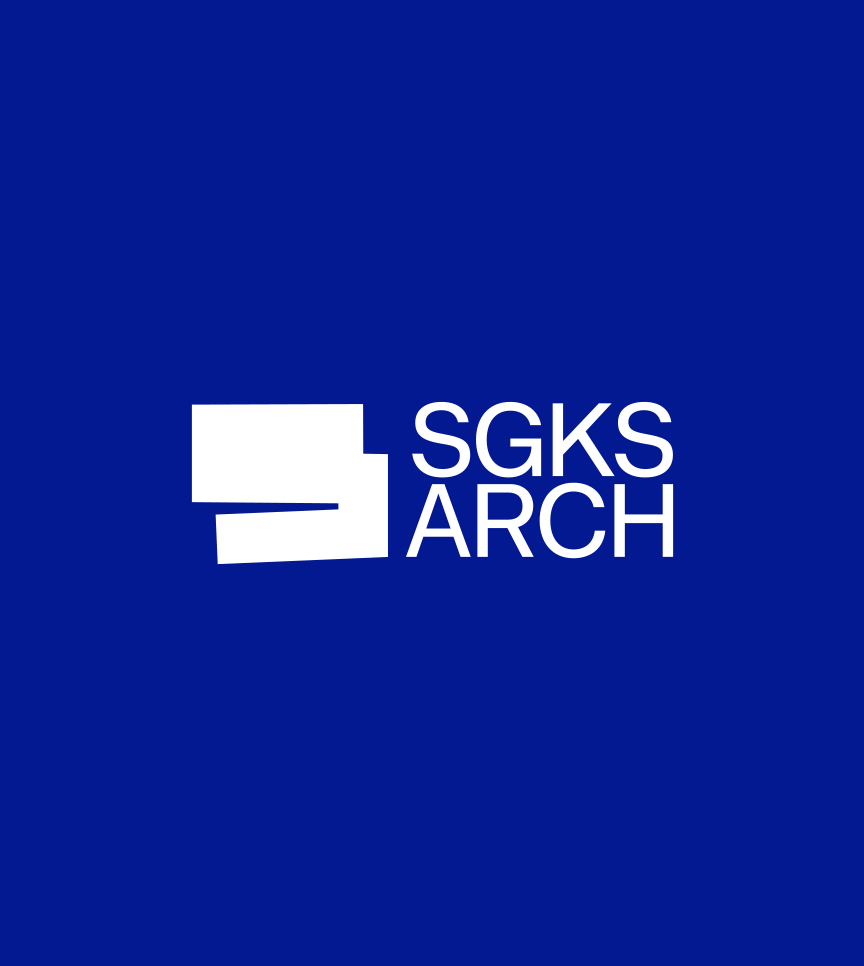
void draw(SkCanvas* canvas) {
    SkPaint paint;
    paint.setAntiAlias(true);
    auto paste = [&](const char* path, float x, float y, float w, float h) {
        auto image = SkImages::DeferredFromEncodedData(SkData::MakeFromFileName(path));
        canvas->drawImageRect(image, SkRect::MakeXYWH(x, y, w, h), SkSamplingOptions());
    };
    canvas->clear(SkColorSetRGB(3, 25, 145));
    paste("pic1.png", 191, 401, 483, 164);
}
